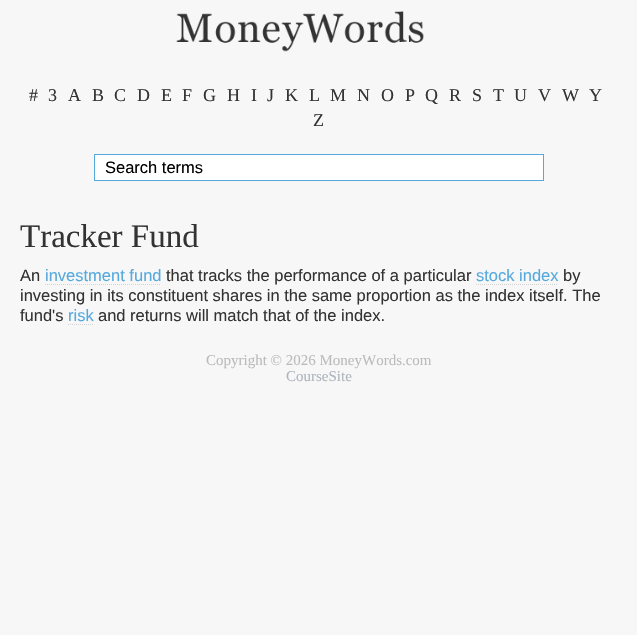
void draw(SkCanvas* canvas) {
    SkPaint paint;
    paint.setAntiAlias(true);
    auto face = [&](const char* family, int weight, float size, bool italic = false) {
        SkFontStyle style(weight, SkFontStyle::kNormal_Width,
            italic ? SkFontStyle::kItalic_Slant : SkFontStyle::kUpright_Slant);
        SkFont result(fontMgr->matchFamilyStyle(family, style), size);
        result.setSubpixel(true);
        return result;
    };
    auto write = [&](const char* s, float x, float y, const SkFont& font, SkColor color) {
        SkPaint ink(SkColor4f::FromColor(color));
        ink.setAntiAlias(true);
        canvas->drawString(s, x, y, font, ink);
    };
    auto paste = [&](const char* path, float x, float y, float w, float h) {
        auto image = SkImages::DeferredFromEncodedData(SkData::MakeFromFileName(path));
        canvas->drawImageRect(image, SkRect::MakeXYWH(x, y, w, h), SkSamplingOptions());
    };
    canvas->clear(SkColorSetRGB(247, 247, 247));
    paste("pic1.png", 176, 11, 248, 41);
    auto kFont1 = face("Liberation Serif", 400, 18);
    write("#", 29, 101, kFont1, SkColorSetRGB(51, 51, 51));
    write("3", 48, 101, kFont1, SkColorSetRGB(51, 51, 51));
    write("A", 68, 101, kFont1, SkColorSetRGB(51, 51, 51));
    write("B", 92, 101, kFont1, SkColorSetRGB(51, 51, 51));
    write("C", 114, 101, kFont1, SkColorSetRGB(51, 51, 51));
    write("D", 137, 101, kFont1, SkColorSetRGB(51, 51, 51));
    write("E", 161, 101, kFont1, SkColorSetRGB(51, 51, 51));
    write("F", 182, 101, kFont1, SkColorSetRGB(51, 51, 51));
    write("G", 203, 101, kFont1, SkColorSetRGB(51, 51, 51));
    write("H", 227, 101, kFont1, SkColorSetRGB(51, 51, 51));
    write("I", 251, 101, kFont1, SkColorSetRGB(51, 51, 51));
    write("J", 267, 101, kFont1, SkColorSetRGB(51, 51, 51));
    write("K", 285, 101, kFont1, SkColorSetRGB(51, 51, 51));
    write("L", 309, 101, kFont1, SkColorSetRGB(51, 51, 51));
    write("M", 330, 101, kFont1, SkColorSetRGB(51, 51, 51));
    write("N", 357, 101, kFont1, SkColorSetRGB(51, 51, 51));
    write("O", 381, 101, kFont1, SkColorSetRGB(51, 51, 51));
    write("P", 405, 101, kFont1, SkColorSetRGB(51, 51, 51));
    write("Q", 425, 101, kFont1, SkColorSetRGB(51, 51, 51));
    write("R", 449, 101, kFont1, SkColorSetRGB(51, 51, 51));
    write("S", 472, 101, kFont1, SkColorSetRGB(51, 51, 51));
    write("T", 493, 101, kFont1, SkColorSetRGB(51, 51, 51));
    write("U", 514, 101, kFont1, SkColorSetRGB(51, 51, 51));
    write("V", 538, 101, kFont1, SkColorSetRGB(51, 51, 51));
    write("W", 562, 101, kFont1, SkColorSetRGB(51, 51, 51));
    write("Y", 589, 101, kFont1, SkColorSetRGB(51, 51, 51));
    write("Z", 313, 126, kFont1, SkColorSetRGB(51, 51, 51));
    paint.setColor(SK_ColorWHITE);
    canvas->drawRect(SkRect::MakeXYWH(94.5f, 154.5f, 449, 26), paint);
    paint.setStyle(SkPaint::kStroke_Style);
    paint.setStrokeWidth(1);
    paint.setColor(SkColorSetRGB(86, 169, 221));
    canvas->drawRect(SkRect::MakeXYWH(94.5f, 154.5f, 449, 26), paint);
    auto kFont2 = face("Liberation Sans", 400, 16.5f);
    write("Search terms", 105, 173, kFont2, SK_ColorBLACK);
    auto kFont3 = face("Liberation Serif", 400, 33);
    write("Tracker Fund", 20, 247, kFont3, SkColorSetRGB(51, 51, 51));
    write("An", 20, 281, kFont2, SkColorSetRGB(51, 51, 51));
    write("investment fund", 45, 281, kFont2, SkColorSetRGB(86, 169, 221));
    paint.setColor(SkColorSetRGB(211, 211, 211));
    paint.setPathEffect(SkDashPathEffect::Make({{1, 1}}, 0));
    canvas->drawPath(SkPathBuilder().moveTo(45, 284.5f).lineTo(161, 284.5f).detach(), paint);
    paint.setPathEffect(nullptr);
    write("that tracks the performance of a particular", 166, 281, kFont2, SkColorSetRGB(51, 51, 51));
    write("stock index", 476, 281, kFont2, SkColorSetRGB(86, 169, 221));
    paint.setPathEffect(SkDashPathEffect::Make({{1, 1}}, 0));
    canvas->drawPath(SkPathBuilder().moveTo(476, 284.5f).lineTo(558, 284.5f).detach(), paint);
    paint.setPathEffect(nullptr);
    write("by", 563, 281, kFont2, SkColorSetRGB(51, 51, 51));
    write("investing in its constituent shares in the same proportion as the index itself. The", 20, 301, kFont2, SkColorSetRGB(51, 51, 51));
    write("fund's", 20, 321, kFont2, SkColorSetRGB(51, 51, 51));
    write("risk", 68, 321, kFont2, SkColorSetRGB(86, 169, 221));
    paint.setPathEffect(SkDashPathEffect::Make({{1, 1}}, 0));
    canvas->drawPath(SkPathBuilder().moveTo(68, 324.5f).lineTo(94, 324.5f).detach(), paint);
    paint.setPathEffect(nullptr);
    write("and returns will match that of the index.", 98, 321, kFont2, SkColorSetRGB(51, 51, 51));
    auto kFont4 = face("Liberation Serif", 400, 15);
    write("Copyright © 2026 MoneyWords.com", 206, 365, kFont4, SkColorSetRGB(187, 187, 187));
    write("CourseSite", 286, 381, kFont4, SkColorSetRGB(173, 181, 189));
}
